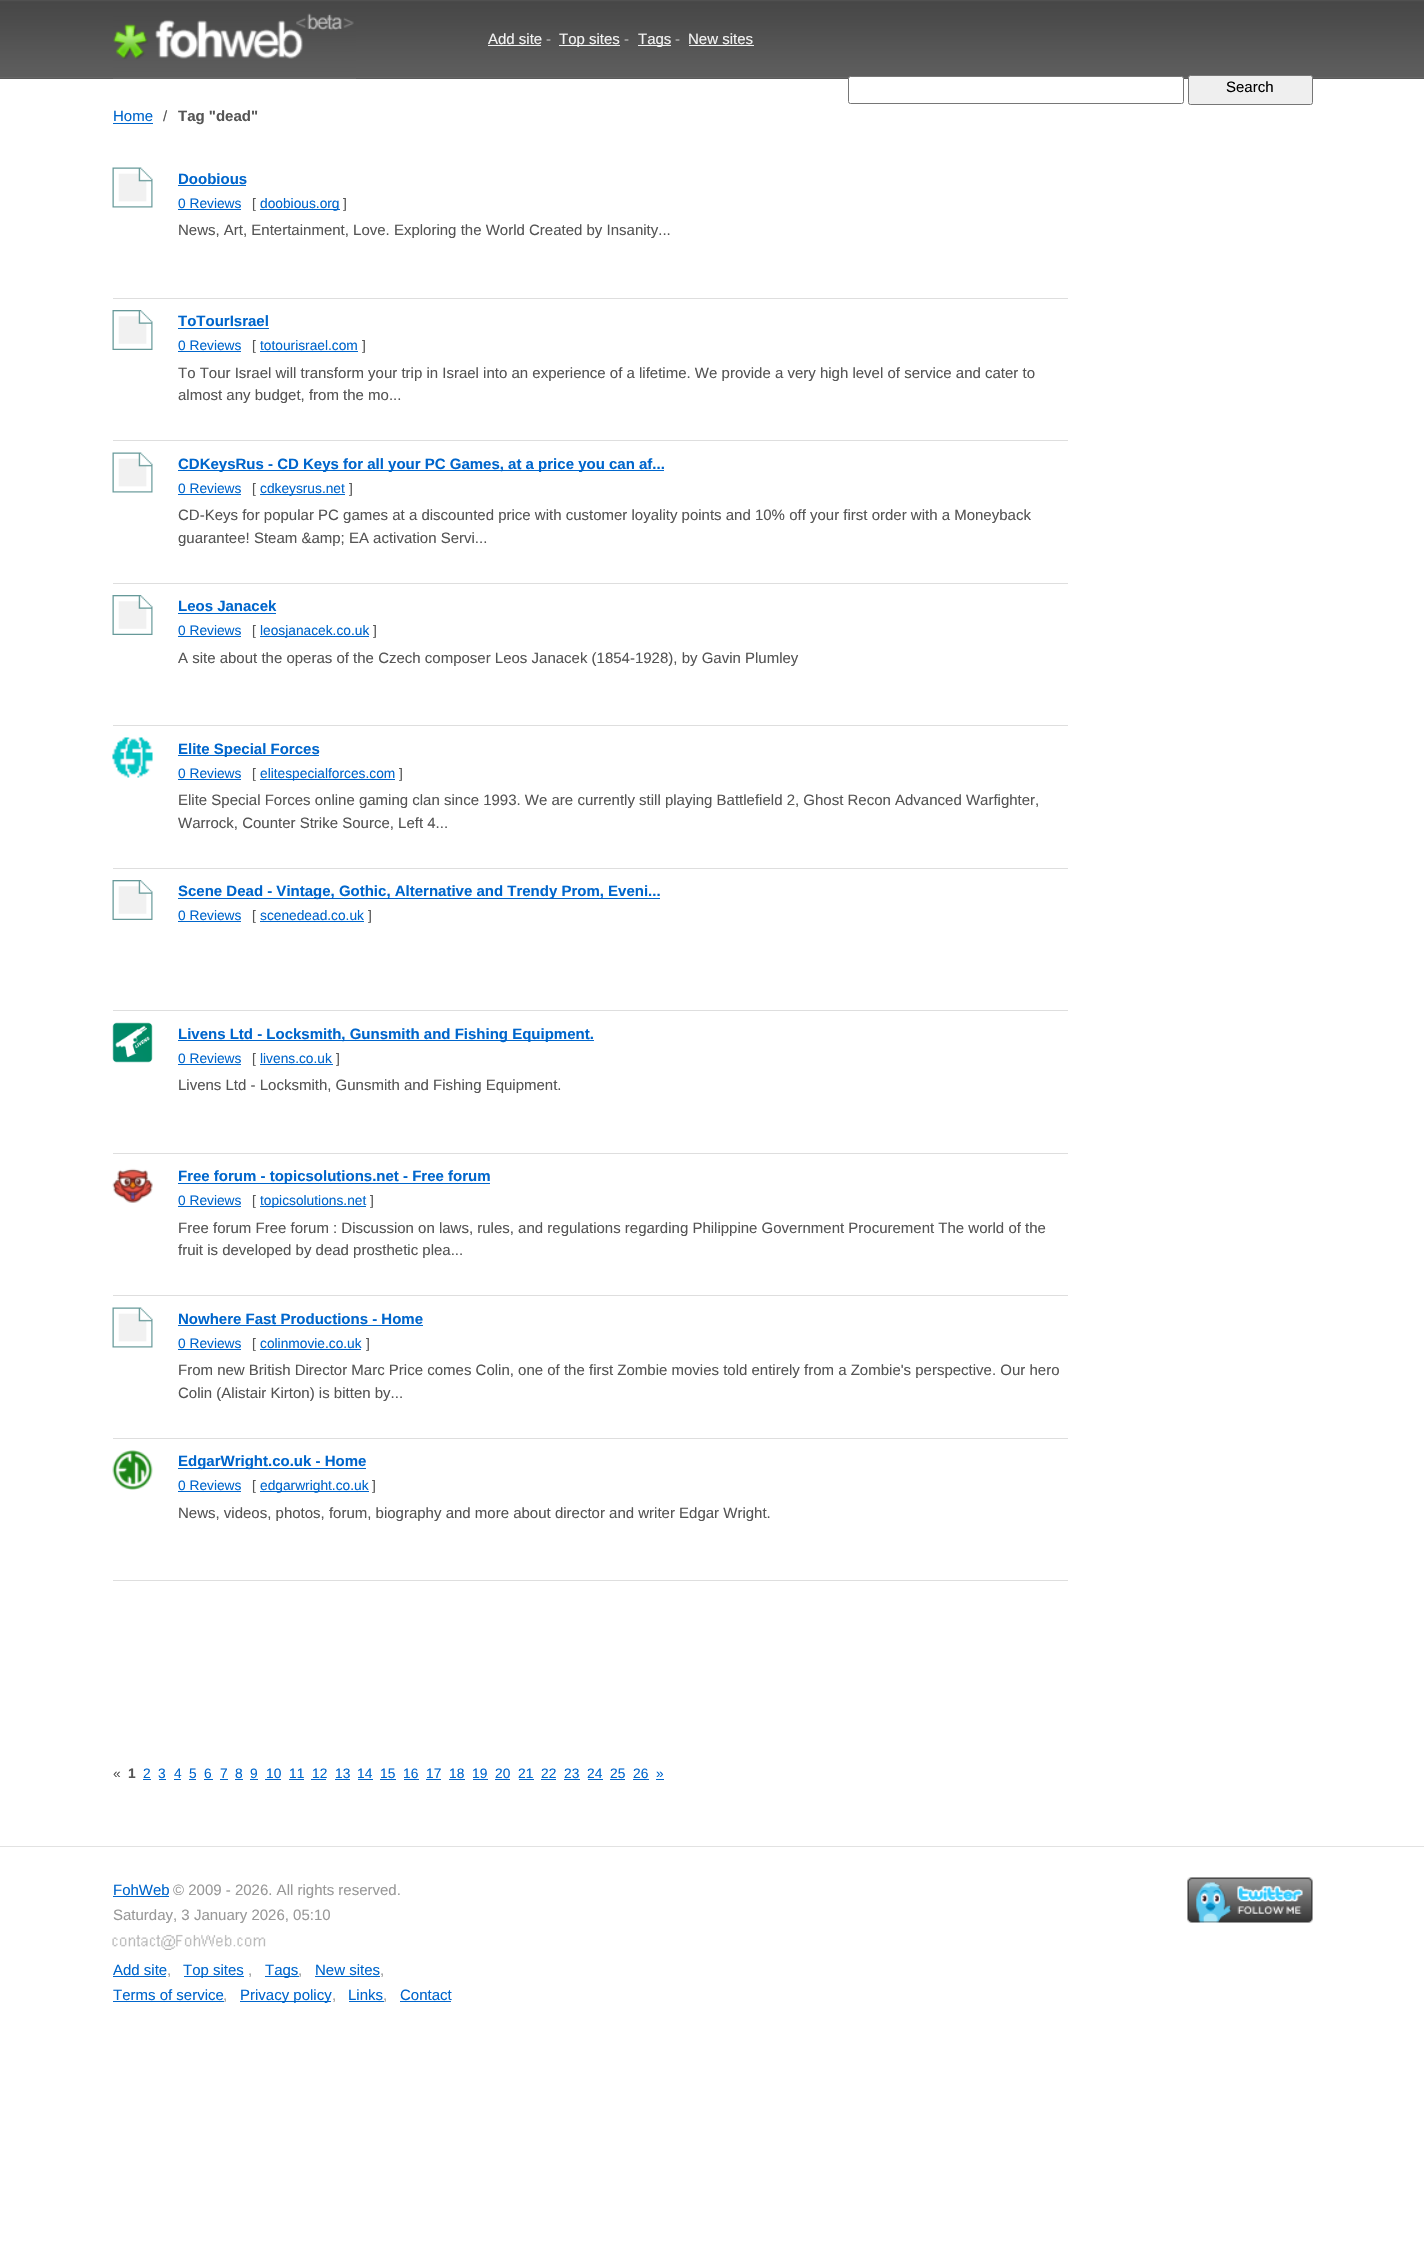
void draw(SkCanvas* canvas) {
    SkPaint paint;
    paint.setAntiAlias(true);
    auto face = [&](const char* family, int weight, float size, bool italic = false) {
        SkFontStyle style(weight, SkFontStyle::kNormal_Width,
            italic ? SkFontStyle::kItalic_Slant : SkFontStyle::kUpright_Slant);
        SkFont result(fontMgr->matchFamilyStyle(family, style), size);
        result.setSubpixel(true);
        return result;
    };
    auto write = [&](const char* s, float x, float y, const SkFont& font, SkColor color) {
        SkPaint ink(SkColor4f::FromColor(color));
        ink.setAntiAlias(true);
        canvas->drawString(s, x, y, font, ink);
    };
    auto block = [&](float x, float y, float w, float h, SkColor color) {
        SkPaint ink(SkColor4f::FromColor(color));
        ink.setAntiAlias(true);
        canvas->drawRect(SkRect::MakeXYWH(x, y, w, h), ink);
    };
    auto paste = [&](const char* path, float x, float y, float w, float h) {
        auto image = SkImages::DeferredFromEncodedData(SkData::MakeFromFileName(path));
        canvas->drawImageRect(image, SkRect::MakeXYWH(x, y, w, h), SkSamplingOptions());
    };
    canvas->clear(SK_ColorWHITE);
    block(0, 78, 1424, 1, SkColorSetRGB(68, 68, 68));
    paste("pic1.png", 0, 0, 1424, 79);
    paste("pic2.png", 113, 13, 243, 66);
    auto kFont1 = face("Liberation Sans", 400, 15);
    write("Add site", 488, 44, kFont1, SkColorSetRGB(243, 243, 243));
    block(488, 45, 53, 1, SkColorSetRGB(243, 243, 243));
    write("-", 546, 44, kFont1, SkColorSetRGB(182, 182, 182));
    block(559, 45, 61, 1, SkColorSetRGB(243, 243, 243));
    write("Top sites", 559, 44, kFont1, SkColorSetRGB(243, 243, 243));
    write("-", 624, 44, kFont1, SkColorSetRGB(182, 182, 182));
    block(638, 45, 33, 1, SkColorSetRGB(243, 243, 243));
    write("Tags", 638, 44, kFont1, SkColorSetRGB(243, 243, 243));
    write("-", 675, 44, kFont1, SkColorSetRGB(182, 182, 182));
    write("New sites", 688, 44, kFont1, SkColorSetRGB(243, 243, 243));
    block(689, 45, 65, 1, SkColorSetRGB(243, 243, 243));
    paint.setColor(SK_ColorWHITE);
    canvas->drawRoundRect(SkRect::MakeXYWH(848.5f, 76.5f, 335, 27), 2, 2, paint);
    paint.setStyle(SkPaint::kStroke_Style);
    paint.setStrokeWidth(1);
    paint.setColor(SkColorSetRGB(118, 118, 118));
    canvas->drawRoundRect(SkRect::MakeXYWH(848.5f, 76.5f, 335, 27), 2, 2, paint);
    paint.setStyle(SkPaint::kFill_Style);
    paint.setColor(SkColorSetRGB(239, 239, 239));
    canvas->drawRoundRect(SkRect::MakeXYWH(1188.5f, 75.5f, 124, 29), 2, 2, paint);
    paint.setStyle(SkPaint::kStroke_Style);
    paint.setColor(SkColorSetRGB(118, 118, 118));
    canvas->drawRoundRect(SkRect::MakeXYWH(1188.5f, 75.5f, 124, 29), 2, 2, paint);
    write("Search", 1226, 92, kFont1, SK_ColorBLACK);
    write("Home", 113, 121, kFont1, SkColorSetRGB(0, 102, 204));
    block(113, 123, 40, 1, SkColorSetRGB(0, 102, 204));
    write("/", 163, 121, kFont1, SkColorSetRGB(85, 85, 85));
    auto kFont2 = face("Liberation Sans", 700, 15);
    write("Tag \"dead\"", 178, 121, kFont2, SkColorSetRGB(85, 85, 85));
    block(113, 298, 955, 1, SkColorSetRGB(222, 222, 222));
    paste("pic3.png", 112, 167, 41, 41);
    write("Doobious", 178, 184, kFont2, SkColorSetRGB(0, 102, 204));
    block(178, 185, 68, 1, SkColorSetRGB(0, 102, 204));
    auto kFont3 = face("Liberation Sans", 400, 13.75f);
    write("0 Reviews", 178, 208, kFont3, SkColorSetRGB(0, 102, 204));
    block(178, 209, 63, 1, SkColorSetRGB(0, 102, 204));
    write("[", 252, 208, kFont3, SkColorSetRGB(85, 85, 85));
    block(260, 209, 80, 1, SkColorSetRGB(0, 102, 204));
    write("doobious.org", 260, 208, kFont3, SkColorSetRGB(0, 102, 204));
    write("]", 343, 208, kFont3, SkColorSetRGB(85, 85, 85));
    write("News, Art, Entertainment, Love. Exploring the World Created by Insanity...", 178, 235, kFont1, SkColorSetRGB(85, 85, 85));
    block(113, 440, 955, 1, SkColorSetRGB(222, 222, 222));
    paste("pic4.png", 112, 310, 41, 40);
    write("ToTourIsrael", 178, 326, kFont2, SkColorSetRGB(0, 102, 204));
    block(178, 328, 91, 1, SkColorSetRGB(0, 102, 204));
    write("0 Reviews", 178, 350, kFont3, SkColorSetRGB(0, 102, 204));
    block(178, 351, 63, 1, SkColorSetRGB(0, 102, 204));
    write("[", 252, 350, kFont3, SkColorSetRGB(85, 85, 85));
    write("totourisrael.com", 260, 350, kFont3, SkColorSetRGB(0, 102, 204));
    block(260, 351, 98, 1, SkColorSetRGB(0, 102, 204));
    write("]", 362, 350, kFont3, SkColorSetRGB(85, 85, 85));
    write("To Tour Israel will transform your trip in Israel into an experience of a lifetime. We provide a very high level of service and cater to", 178, 378, kFont1, SkColorSetRGB(85, 85, 85));
    write("almost any budget, from the mo...", 178, 400, kFont1, SkColorSetRGB(85, 85, 85));
    block(113, 583, 955, 1, SkColorSetRGB(222, 222, 222));
    paste("pic3.png", 112, 452, 41, 41);
    block(178, 470, 486, 1, SkColorSetRGB(0, 102, 204));
    write("CDKeysRus - CD Keys for all your PC Games, at a price you can af...", 178, 469, kFont2, SkColorSetRGB(0, 102, 204));
    write("0 Reviews", 178, 493, kFont3, SkColorSetRGB(0, 102, 204));
    block(178, 494, 63, 1, SkColorSetRGB(0, 102, 204));
    write("[", 252, 493, kFont3, SkColorSetRGB(85, 85, 85));
    block(260, 494, 85, 1, SkColorSetRGB(0, 102, 204));
    write("cdkeysrus.net", 260, 493, kFont3, SkColorSetRGB(0, 102, 204));
    write("]", 349, 493, kFont3, SkColorSetRGB(85, 85, 85));
    write("CD-Keys for popular PC games at a discounted price with customer loyality points and 10% off your first order with a Moneyback", 178, 520, kFont1, SkColorSetRGB(85, 85, 85));
    write("guarantee! Steam &amp; EA activation Servi...", 178, 543, kFont1, SkColorSetRGB(85, 85, 85));
    block(113, 725, 955, 1, SkColorSetRGB(222, 222, 222));
    paste("pic4.png", 112, 595, 41, 40);
    write("Leos Janacek", 178, 611, kFont2, SkColorSetRGB(0, 102, 204));
    block(178, 613, 98, 1, SkColorSetRGB(0, 102, 204));
    write("0 Reviews", 178, 635, kFont3, SkColorSetRGB(0, 102, 204));
    block(178, 636, 63, 1, SkColorSetRGB(0, 102, 204));
    write("[", 252, 635, kFont3, SkColorSetRGB(85, 85, 85));
    block(260, 636, 109, 1, SkColorSetRGB(0, 102, 204));
    write("leosjanacek.co.uk", 260, 635, kFont3, SkColorSetRGB(0, 102, 204));
    write("]", 373, 635, kFont3, SkColorSetRGB(85, 85, 85));
    write("A site about the operas of the Czech composer Leos Janacek (1854-1928), by Gavin Plumley", 178, 663, kFont1, SkColorSetRGB(85, 85, 85));
    block(113, 868, 955, 1, SkColorSetRGB(222, 222, 222));
    paste("pic5.png", 112, 737, 41, 41);
    block(178, 755, 141, 1, SkColorSetRGB(0, 102, 204));
    write("Elite Special Forces", 178, 754, kFont2, SkColorSetRGB(0, 102, 204));
    write("0 Reviews", 178, 778, kFont3, SkColorSetRGB(0, 102, 204));
    block(178, 779, 63, 1, SkColorSetRGB(0, 102, 204));
    write("[", 252, 778, kFont3, SkColorSetRGB(85, 85, 85));
    block(260, 779, 135, 1, SkColorSetRGB(0, 102, 204));
    write("elitespecialforces.com", 260, 778, kFont3, SkColorSetRGB(0, 102, 204));
    write("]", 399, 778, kFont3, SkColorSetRGB(85, 85, 85));
    write("Elite Special Forces online gaming clan since 1993. We are currently still playing Battlefield 2, Ghost Recon Advanced Warfighter,", 178, 805, kFont1, SkColorSetRGB(85, 85, 85));
    write("Warrock, Counter Strike Source, Left 4...", 178, 828, kFont1, SkColorSetRGB(85, 85, 85));
    block(113, 1010, 955, 1, SkColorSetRGB(222, 222, 222));
    paste("pic4.png", 112, 880, 41, 40);
    block(178, 898, 482, 1, SkColorSetRGB(0, 102, 204));
    write("Scene Dead - Vintage, Gothic, Alternative and Trendy Prom, Eveni...", 178, 896, kFont2, SkColorSetRGB(0, 102, 204));
    write("0 Reviews", 178, 920, kFont3, SkColorSetRGB(0, 102, 204));
    block(178, 921, 63, 1, SkColorSetRGB(0, 102, 204));
    write("[", 252, 920, kFont3, SkColorSetRGB(85, 85, 85));
    write("scenedead.co.uk", 260, 920, kFont3, SkColorSetRGB(0, 102, 204));
    block(260, 921, 104, 1, SkColorSetRGB(0, 102, 204));
    write("]", 368, 920, kFont3, SkColorSetRGB(85, 85, 85));
    block(113, 1153, 955, 1, SkColorSetRGB(222, 222, 222));
    paste("pic6.png", 112, 1022, 41, 41);
    block(178, 1040, 416, 1, SkColorSetRGB(0, 102, 204));
    write("Livens Ltd - Locksmith, Gunsmith and Fishing Equipment.", 178, 1039, kFont2, SkColorSetRGB(0, 102, 204));
    write("0 Reviews", 178, 1063, kFont3, SkColorSetRGB(0, 102, 204));
    block(178, 1064, 63, 1, SkColorSetRGB(0, 102, 204));
    write("[", 252, 1063, kFont3, SkColorSetRGB(85, 85, 85));
    write("livens.co.uk", 260, 1063, kFont3, SkColorSetRGB(0, 102, 204));
    block(260, 1064, 73, 1, SkColorSetRGB(0, 102, 204));
    write("]", 336, 1063, kFont3, SkColorSetRGB(85, 85, 85));
    write("Livens Ltd - Locksmith, Gunsmith and Fishing Equipment.", 178, 1090, kFont1, SkColorSetRGB(85, 85, 85));
    block(113, 1295, 955, 1, SkColorSetRGB(222, 222, 222));
    paste("pic7.png", 112, 1168, 41, 35);
    block(178, 1183, 312, 1, SkColorSetRGB(0, 102, 204));
    write("Free forum - topicsolutions.net - Free forum", 178, 1181, kFont2, SkColorSetRGB(0, 102, 204));
    write("0 Reviews", 178, 1205, kFont3, SkColorSetRGB(0, 102, 204));
    block(178, 1206, 63, 1, SkColorSetRGB(0, 102, 204));
    write("[", 252, 1205, kFont3, SkColorSetRGB(85, 85, 85));
    block(260, 1206, 106, 1, SkColorSetRGB(0, 102, 204));
    write("topicsolutions.net", 260, 1205, kFont3, SkColorSetRGB(0, 102, 204));
    write("]", 370, 1205, kFont3, SkColorSetRGB(85, 85, 85));
    write("Free forum Free forum : Discussion on laws, rules, and regulations regarding Philippine Government Procurement The world of the", 178, 1233, kFont1, SkColorSetRGB(85, 85, 85));
    write("fruit is developed by dead prosthetic plea...", 178, 1255, kFont1, SkColorSetRGB(85, 85, 85));
    block(113, 1438, 955, 1, SkColorSetRGB(222, 222, 222));
    paste("pic3.png", 112, 1307, 41, 41);
    write("Nowhere Fast Productions - Home", 178, 1324, kFont2, SkColorSetRGB(0, 102, 204));
    block(178, 1325, 245, 1, SkColorSetRGB(0, 102, 204));
    write("0 Reviews", 178, 1348, kFont3, SkColorSetRGB(0, 102, 204));
    block(178, 1349, 63, 1, SkColorSetRGB(0, 102, 204));
    write("[", 252, 1348, kFont3, SkColorSetRGB(85, 85, 85));
    write("colinmovie.co.uk", 260, 1348, kFont3, SkColorSetRGB(0, 102, 204));
    block(260, 1349, 101, 1, SkColorSetRGB(0, 102, 204));
    write("]", 366, 1348, kFont3, SkColorSetRGB(85, 85, 85));
    write("From new British Director Marc Price comes Colin, one of the first Zombie movies told entirely from a Zombie's perspective. Our hero", 178, 1375, kFont1, SkColorSetRGB(85, 85, 85));
    write("Colin (Alistair Kirton) is bitten by...", 178, 1398, kFont1, SkColorSetRGB(85, 85, 85));
    block(113, 1580, 955, 1, SkColorSetRGB(222, 222, 222));
    paste("pic8.png", 112, 1450, 41, 40);
    block(178, 1468, 188, 1, SkColorSetRGB(0, 102, 204));
    write("EdgarWright.co.uk - Home", 178, 1466, kFont2, SkColorSetRGB(0, 102, 204));
    write("0 Reviews", 178, 1490, kFont3, SkColorSetRGB(0, 102, 204));
    block(178, 1491, 63, 1, SkColorSetRGB(0, 102, 204));
    write("[", 252, 1490, kFont3, SkColorSetRGB(85, 85, 85));
    block(260, 1491, 109, 1, SkColorSetRGB(0, 102, 204));
    write("edgarwright.co.uk", 260, 1490, kFont3, SkColorSetRGB(0, 102, 204));
    write("]", 372, 1490, kFont3, SkColorSetRGB(85, 85, 85));
    write("News, videos, photos, forum, biography and more about director and writer Edgar Wright.", 178, 1518, kFont1, SkColorSetRGB(85, 85, 85));
    write("«", 113, 1778, kFont3, SkColorSetRGB(85, 85, 85));
    auto kFont4 = face("Liberation Sans", 700, 13.75f);
    write("1", 128, 1778, kFont4, SkColorSetRGB(85, 85, 85));
    write("2", 143, 1778, kFont3, SkColorSetRGB(0, 102, 204));
    block(143, 1779, 8, 1, SkColorSetRGB(0, 102, 204));
    write("3", 158, 1778, kFont3, SkColorSetRGB(0, 102, 204));
    block(159, 1779, 7, 1, SkColorSetRGB(0, 102, 204));
    write("4", 174, 1778, kFont3, SkColorSetRGB(0, 102, 204));
    block(174, 1779, 7, 1, SkColorSetRGB(0, 102, 204));
    write("5", 189, 1778, kFont3, SkColorSetRGB(0, 102, 204));
    block(189, 1779, 7, 1, SkColorSetRGB(0, 102, 204));
    write("6", 204, 1778, kFont3, SkColorSetRGB(0, 102, 204));
    block(204, 1779, 9, 1, SkColorSetRGB(0, 102, 204));
    write("7", 220, 1778, kFont3, SkColorSetRGB(0, 102, 204));
    block(220, 1779, 8, 1, SkColorSetRGB(0, 102, 204));
    write("8", 235, 1778, kFont3, SkColorSetRGB(0, 102, 204));
    block(235, 1779, 8, 1, SkColorSetRGB(0, 102, 204));
    write("9", 250, 1778, kFont3, SkColorSetRGB(0, 102, 204));
    block(250, 1779, 8, 1, SkColorSetRGB(0, 102, 204));
    write("10", 266, 1778, kFont3, SkColorSetRGB(0, 102, 204));
    block(265, 1779, 16, 1, SkColorSetRGB(0, 102, 204));
    write("11", 289, 1778, kFont3, SkColorSetRGB(0, 102, 204));
    block(289, 1779, 15, 1, SkColorSetRGB(0, 102, 204));
    write("12", 312, 1778, kFont3, SkColorSetRGB(0, 102, 204));
    block(311, 1779, 15, 1, SkColorSetRGB(0, 102, 204));
    write("13", 335, 1778, kFont3, SkColorSetRGB(0, 102, 204));
    block(335, 1779, 15, 1, SkColorSetRGB(0, 102, 204));
    write("14", 357, 1778, kFont3, SkColorSetRGB(0, 102, 204));
    block(358, 1779, 15, 1, SkColorSetRGB(0, 102, 204));
    write("15", 380, 1778, kFont3, SkColorSetRGB(0, 102, 204));
    block(380, 1779, 16, 1, SkColorSetRGB(0, 102, 204));
    write("16", 403, 1778, kFont3, SkColorSetRGB(0, 102, 204));
    block(404, 1779, 15, 1, SkColorSetRGB(0, 102, 204));
    write("17", 426, 1778, kFont3, SkColorSetRGB(0, 102, 204));
    block(426, 1779, 15, 1, SkColorSetRGB(0, 102, 204));
    write("18", 449, 1778, kFont3, SkColorSetRGB(0, 102, 204));
    block(449, 1779, 16, 1, SkColorSetRGB(0, 102, 204));
    write("19", 472, 1778, kFont3, SkColorSetRGB(0, 102, 204));
    block(473, 1779, 15, 1, SkColorSetRGB(0, 102, 204));
    write("20", 495, 1778, kFont3, SkColorSetRGB(0, 102, 204));
    block(495, 1779, 15, 1, SkColorSetRGB(0, 102, 204));
    write("21", 518, 1778, kFont3, SkColorSetRGB(0, 102, 204));
    block(519, 1779, 15, 1, SkColorSetRGB(0, 102, 204));
    write("22", 541, 1778, kFont3, SkColorSetRGB(0, 102, 204));
    block(541, 1779, 15, 1, SkColorSetRGB(0, 102, 204));
    write("23", 564, 1778, kFont3, SkColorSetRGB(0, 102, 204));
    block(564, 1779, 16, 1, SkColorSetRGB(0, 102, 204));
    write("24", 587, 1778, kFont3, SkColorSetRGB(0, 102, 204));
    block(588, 1779, 15, 1, SkColorSetRGB(0, 102, 204));
    write("25", 610, 1778, kFont3, SkColorSetRGB(0, 102, 204));
    block(610, 1779, 15, 1, SkColorSetRGB(0, 102, 204));
    write("26", 633, 1778, kFont3, SkColorSetRGB(0, 102, 204));
    block(633, 1779, 16, 1, SkColorSetRGB(0, 102, 204));
    write("»", 656, 1778, kFont3, SkColorSetRGB(0, 102, 204));
    block(656, 1779, 8, 1, SkColorSetRGB(0, 102, 204));
    block(0, 1846, 1424, 1, SkColorSetRGB(226, 226, 226));
    write("FohWeb", 113, 1895, kFont1, SkColorSetRGB(0, 102, 204));
    block(113, 1896, 56, 1, SkColorSetRGB(0, 102, 204));
    write("© 2009 - 2026. All rights reserved.", 173, 1895, kFont1, SkColorSetRGB(153, 153, 153));
    write("Saturday, 3 January 2026, 05:10", 113, 1920, kFont1, SkColorSetRGB(153, 153, 153));
    paste("pic9.png", 112, 1934, 154, 16);
    write("Add site", 113, 1975, kFont1, SkColorSetRGB(0, 102, 204));
    block(113, 1976, 53, 1, SkColorSetRGB(0, 102, 204));
    write(",", 167, 1975, kFont1, SkColorSetRGB(153, 153, 153));
    block(184, 1976, 60, 1, SkColorSetRGB(0, 102, 204));
    write("Top sites", 183, 1975, kFont1, SkColorSetRGB(0, 102, 204));
    write(",", 248, 1975, kFont1, SkColorSetRGB(153, 153, 153));
    block(265, 1976, 34, 1, SkColorSetRGB(0, 102, 204));
    write("Tags", 265, 1975, kFont1, SkColorSetRGB(0, 102, 204));
    write(",", 298, 1975, kFont1, SkColorSetRGB(153, 153, 153));
    write("New sites", 315, 1975, kFont1, SkColorSetRGB(0, 102, 204));
    block(315, 1976, 65, 1, SkColorSetRGB(0, 102, 204));
    write(",", 380, 1975, kFont1, SkColorSetRGB(153, 153, 153));
    write("Terms of service", 113, 2000, kFont1, SkColorSetRGB(0, 102, 204));
    block(113, 2001, 111, 1, SkColorSetRGB(0, 102, 204));
    write(",", 223, 2000, kFont1, SkColorSetRGB(153, 153, 153));
    block(240, 2001, 91, 1, SkColorSetRGB(0, 102, 204));
    write("Privacy policy", 240, 2000, kFont1, SkColorSetRGB(0, 102, 204));
    write(",", 332, 2000, kFont1, SkColorSetRGB(153, 153, 153));
    write("Links", 348, 2000, kFont1, SkColorSetRGB(0, 102, 204));
    block(349, 2001, 35, 1, SkColorSetRGB(0, 102, 204));
    write(",", 383, 2000, kFont1, SkColorSetRGB(153, 153, 153));
    write("Contact", 400, 2000, kFont1, SkColorSetRGB(0, 102, 204));
    block(400, 2001, 51, 1, SkColorSetRGB(0, 102, 204));
    paste("pic10.png", 1187, 1877, 126, 46);
}
